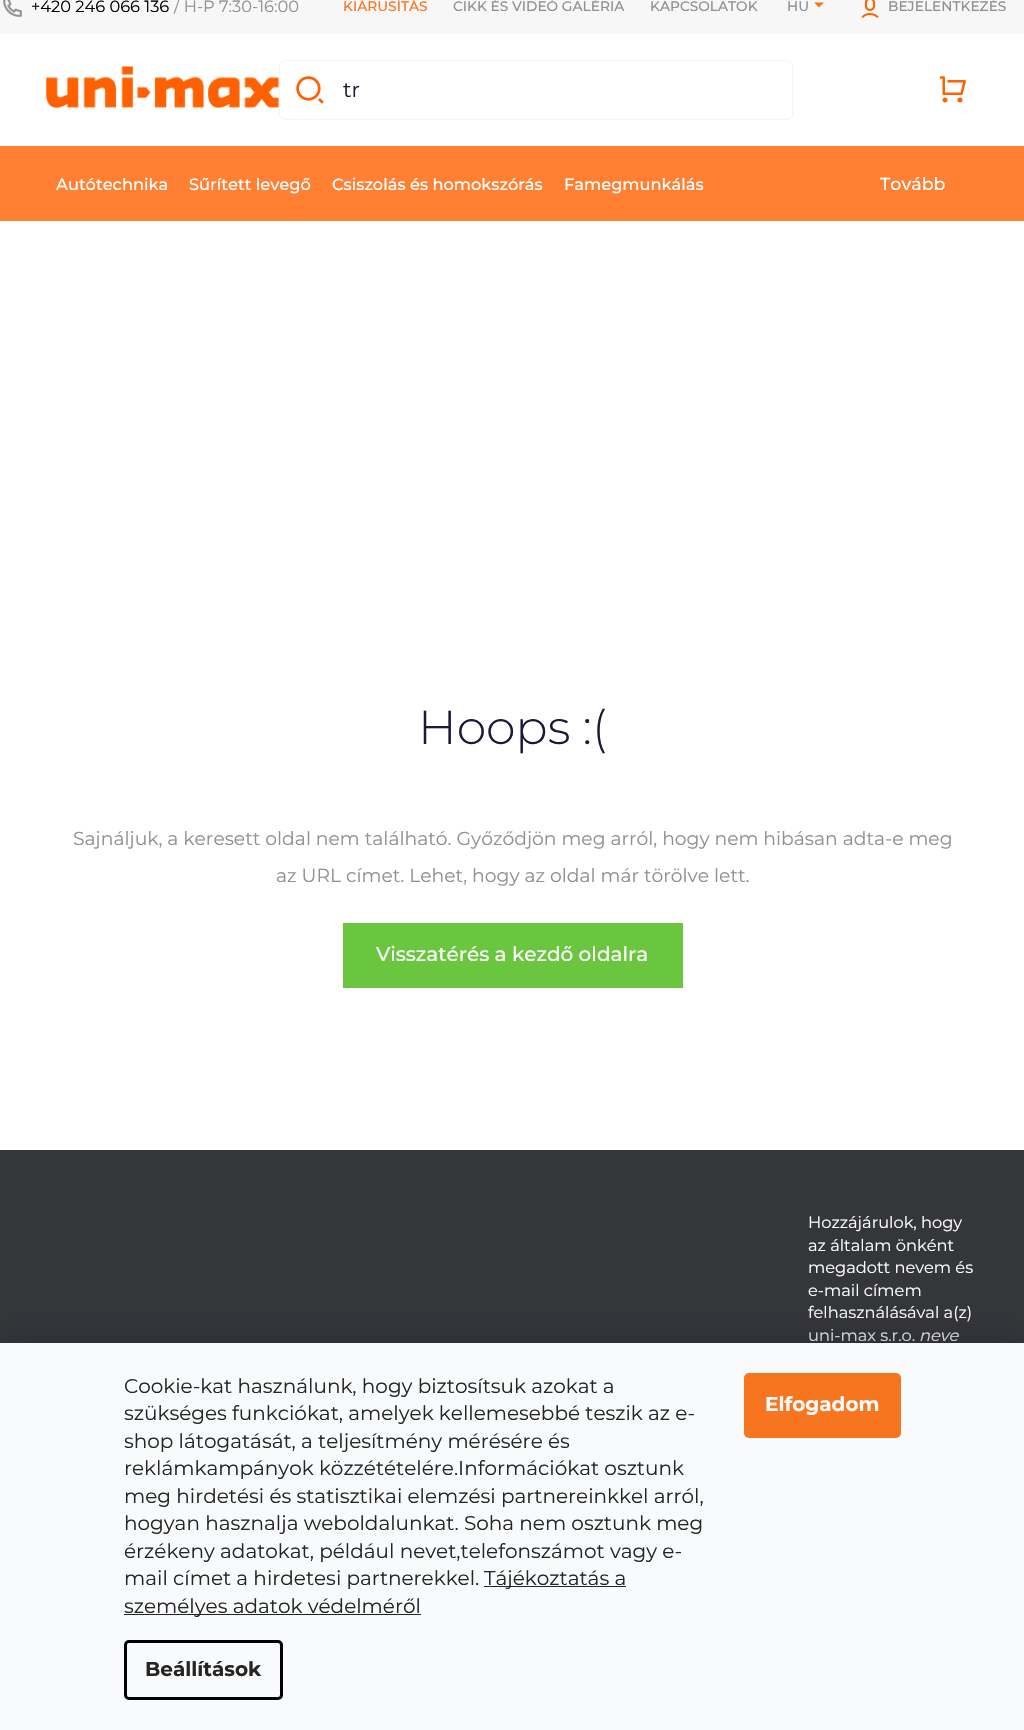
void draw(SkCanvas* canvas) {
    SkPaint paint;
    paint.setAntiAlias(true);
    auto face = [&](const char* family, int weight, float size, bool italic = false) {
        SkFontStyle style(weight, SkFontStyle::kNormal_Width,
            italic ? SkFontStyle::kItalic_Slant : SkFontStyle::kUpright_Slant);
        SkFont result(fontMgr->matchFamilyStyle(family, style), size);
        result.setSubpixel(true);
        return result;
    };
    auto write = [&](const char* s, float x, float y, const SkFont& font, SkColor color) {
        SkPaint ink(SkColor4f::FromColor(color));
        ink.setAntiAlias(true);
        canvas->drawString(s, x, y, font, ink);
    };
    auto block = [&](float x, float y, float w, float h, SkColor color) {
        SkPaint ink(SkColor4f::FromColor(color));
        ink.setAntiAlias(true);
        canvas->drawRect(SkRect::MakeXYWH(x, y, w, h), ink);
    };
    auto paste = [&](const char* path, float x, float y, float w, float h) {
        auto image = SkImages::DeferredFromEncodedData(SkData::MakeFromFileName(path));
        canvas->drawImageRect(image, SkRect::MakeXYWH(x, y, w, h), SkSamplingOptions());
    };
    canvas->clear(SK_ColorWHITE);
    block(0, 0, 1024, 34, SkColorSetRGB(247, 247, 247));
    paste("pic1.png", 3, 0, 19, 17);
    auto kFont1 = face("Montserrat", 400, 16.25f);
    write("+420 246 066 136", 31, 12, kFont1, SK_ColorBLACK);
    write("/ H-P 7:30-16:00", 174, 12, kFont1, SkColorSetRGB(144, 144, 149));
    auto kFont2 = face("Montserrat", 500, 13.75f);
    write("KIÁRUSÍTÁS", 343, 11, kFont2, SkColorSetRGB(247, 117, 30));
    write("CIKK ÉS VIDEÓ GALÉRIA", 453, 11, kFont2, SkColorSetRGB(144, 144, 149));
    write("KAPCSOLATOK", 650, 11, kFont2, SkColorSetRGB(144, 144, 149));
    write("HU", 787, 11, kFont2, SkColorSetRGB(144, 144, 149));
    paint.setColor(SkColorSetRGB(247, 117, 30));
    canvas->drawPath(SkPathBuilder().moveTo(814, 2.5f).lineTo(824, 2.5f).lineTo(819, 7.5f).close().detach(), paint);
    paste("pic2.png", 861, 0, 18, 18);
    write("BEJELENTKEZÉS", 888, 11, kFont2, SkColorSetRGB(144, 144, 149));
    paste("pic3.png", 46, 66, 233, 42);
    paint.setStyle(SkPaint::kStroke_Style);
    paint.setStrokeWidth(1);
    paint.setColor(SkColorSetRGB(244, 244, 244));
    canvas->drawRoundRect(SkRect::MakeXYWH(279.5f, 60.5f, 513, 59), 5.5f, 5.5f, paint);
    paste("pic4.png", 296, 76, 28, 28);
    auto kFont3 = face("Montserrat", 400, 21);
    write("tr", 343, 97, kFont3, SkColorSetRGB(26, 25, 55));
    paste("pic5.png", 940, 76, 26, 27);
    block(0, 146, 1024, 75, SkColorSetRGB(255, 128, 51));
    auto kFont4 = face("Montserrat", 500, 16.25f);
    write("Autótechnika", 56, 190, kFont4, SK_ColorWHITE);
    write("Sűrített levegő", 189, 190, kFont4, SK_ColorWHITE);
    write("Csiszolás és homokszórás", 332, 190, kFont4, SK_ColorWHITE);
    write("Famegmunkálás", 564, 190, kFont4, SK_ColorWHITE);
    auto kFont5 = face("Montserrat", 500, 17.5f);
    write("Tovább", 880, 190, kFont5, SK_ColorWHITE);
    auto kFont6 = face("Montserrat", 300, 47.5f);
    write("Hoops :(", 418, 744, kFont6, SkColorSetRGB(26, 25, 55));
    auto kFont7 = face("Montserrat", 400, 18.75f);
    write("Sajnáljuk, a keresett oldal nem található. Győződjön meg arról, hogy nem hibásan adta-e meg", 73, 845, kFont7, SkColorSetRGB(144, 144, 149));
    write("az URL címet. Lehet, hogy az oldal már törölve lett.", 276, 882, kFont7, SkColorSetRGB(144, 144, 149));
    block(343, 923, 340, 65, SkColorSetRGB(105, 198, 62));
    auto kFont8 = face("Montserrat", 500, 20);
    write("Visszatérés a kezdő oldalra", 376, 961, kFont8, SK_ColorWHITE);
    block(0, 1150, 1024, 193, SkColorSetRGB(53, 54, 57));
    write("Hozzájárulok, hogy", 808, 1228, kFont1, SK_ColorWHITE);
    write("az általam önként", 808, 1251, kFont1, SK_ColorWHITE);
    write("megadott nevem és", 808, 1273, kFont1, SK_ColorWHITE);
    write("e-mail címem", 808, 1296, kFont1, SK_ColorWHITE);
    write("felhasználásával a(z)", 808, 1318, kFont1, SK_ColorWHITE);
    write("uni-max s.r.o.", 808, 1341, kFont1, SK_ColorWHITE);
    auto kFont9 = face("Montserrat", 400, 16.25f, true);
    write("neve", 919, 1341, kFont9, SK_ColorWHITE);
    paint.setStyle(SkPaint::kFill_Style);
    paint.setColor(SkColorSetARGB(128, 27, 25, 57));
    paint.setMaskFilter(SkMaskFilter::MakeBlur(kNormal_SkBlurStyle, 19));
    canvas->drawRect(SkRect::MakeXYWH(0, 1343, 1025, 387), paint);
    paint.setMaskFilter(nullptr);
    block(0, 1343, 1024, 387, SkColorSetRGB(248, 250, 251));
    auto kFont10 = face("Montserrat", 400, 20);
    write("Cookie-kat használunk, hogy biztosítsuk azokat a", 124, 1393, kFont10, SkColorSetRGB(37, 37, 37));
    write("szükséges funkciókat, amelyek kellemesebbé teszik az e-", 124, 1420, kFont10, SkColorSetRGB(37, 37, 37));
    write("shop látogatását, a teljesítmény mérésére és", 124, 1448, kFont10, SkColorSetRGB(37, 37, 37));
    write("reklámkampányok közzétételére.Információkat osztunk", 124, 1475, kFont10, SkColorSetRGB(37, 37, 37));
    write("meg hirdetési és statisztikai elemzési partnereinkkel arról,", 124, 1503, kFont10, SkColorSetRGB(37, 37, 37));
    write("hogyan hasznalja weboldalunkat. Soha nem osztunk meg", 124, 1530, kFont10, SkColorSetRGB(37, 37, 37));
    write("érzékeny adatokat, például nevet,telefonszámot vagy e-", 124, 1558, kFont10, SkColorSetRGB(37, 37, 37));
    write("mail címet a hirdetesi partnerekkel.", 124, 1585, kFont10, SkColorSetRGB(37, 37, 37));
    block(484, 1586, 142, 1, SkColorSetRGB(37, 37, 37));
    write("Tájékoztatás a", 484, 1585, kFont10, SkColorSetRGB(37, 37, 37));
    block(124, 1614, 297, 1, SkColorSetRGB(37, 37, 37));
    write("személyes adatok védelméről", 124, 1613, kFont10, SkColorSetRGB(37, 37, 37));
    paint.setStyle(SkPaint::kStroke_Style);
    paint.setStrokeWidth(3);
    paint.setColor(SK_ColorBLACK);
    canvas->drawRoundRect(SkRect::MakeXYWH(125.5f, 1641.5f, 156, 57), 3.5f, 3.5f, paint);
    auto kFont11 = face("Montserrat", 700, 20);
    write("Beállítások", 145, 1676, kFont11, SkColorSetRGB(37, 37, 37));
    paint.setStyle(SkPaint::kFill_Style);
    paint.setColor(SkColorSetRGB(247, 117, 30));
    canvas->drawRoundRect(SkRect::MakeXYWH(745.5f, 1374.5f, 154, 62), 3.5f, 3.5f, paint);
    paint.setStyle(SkPaint::kStroke_Style);
    canvas->drawRoundRect(SkRect::MakeXYWH(745.5f, 1374.5f, 154, 62), 3.5f, 3.5f, paint);
    write("Elfogadom", 765, 1411, kFont11, SkColorSetRGB(248, 250, 251));
}
